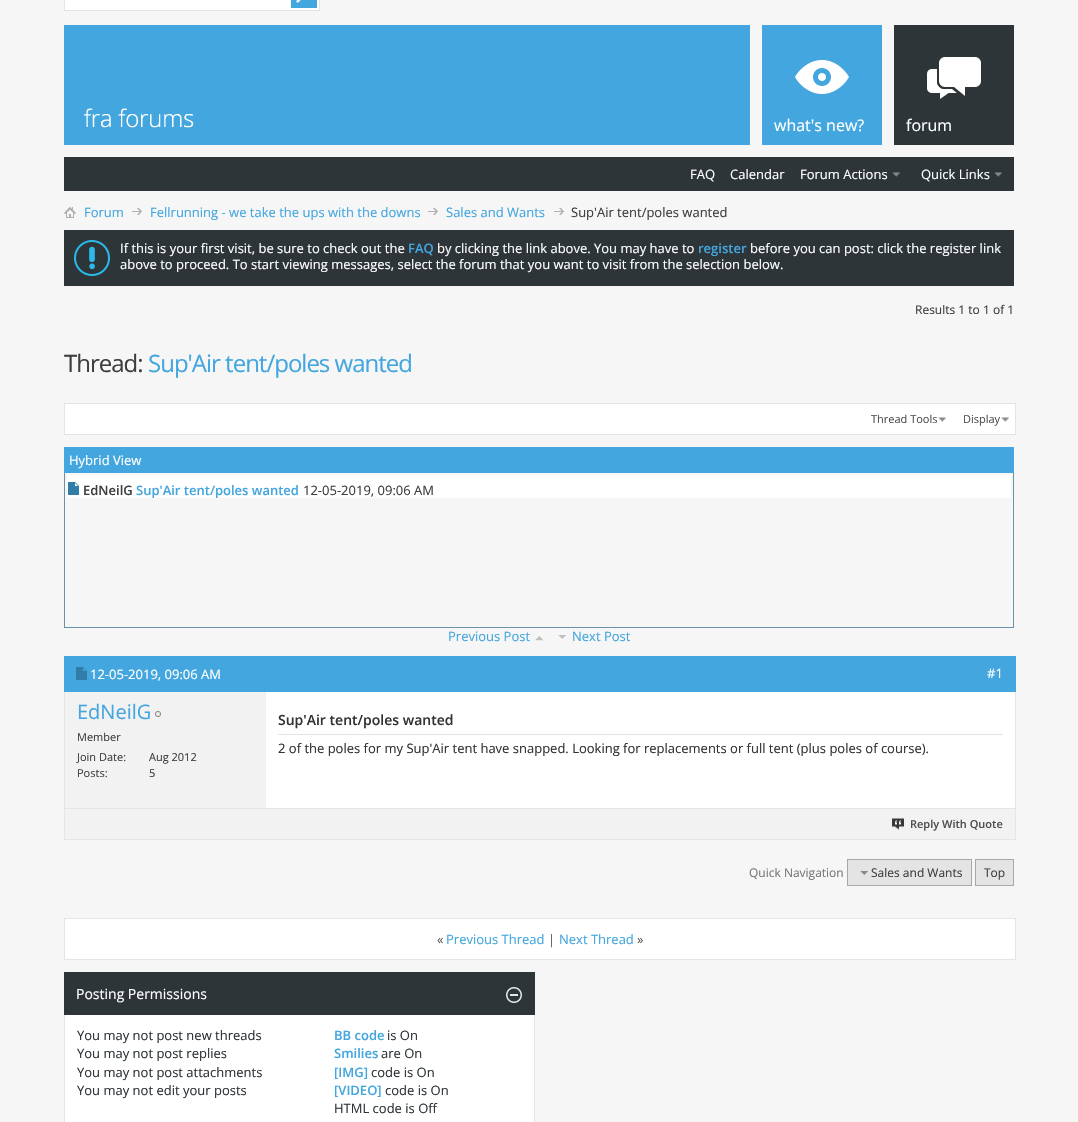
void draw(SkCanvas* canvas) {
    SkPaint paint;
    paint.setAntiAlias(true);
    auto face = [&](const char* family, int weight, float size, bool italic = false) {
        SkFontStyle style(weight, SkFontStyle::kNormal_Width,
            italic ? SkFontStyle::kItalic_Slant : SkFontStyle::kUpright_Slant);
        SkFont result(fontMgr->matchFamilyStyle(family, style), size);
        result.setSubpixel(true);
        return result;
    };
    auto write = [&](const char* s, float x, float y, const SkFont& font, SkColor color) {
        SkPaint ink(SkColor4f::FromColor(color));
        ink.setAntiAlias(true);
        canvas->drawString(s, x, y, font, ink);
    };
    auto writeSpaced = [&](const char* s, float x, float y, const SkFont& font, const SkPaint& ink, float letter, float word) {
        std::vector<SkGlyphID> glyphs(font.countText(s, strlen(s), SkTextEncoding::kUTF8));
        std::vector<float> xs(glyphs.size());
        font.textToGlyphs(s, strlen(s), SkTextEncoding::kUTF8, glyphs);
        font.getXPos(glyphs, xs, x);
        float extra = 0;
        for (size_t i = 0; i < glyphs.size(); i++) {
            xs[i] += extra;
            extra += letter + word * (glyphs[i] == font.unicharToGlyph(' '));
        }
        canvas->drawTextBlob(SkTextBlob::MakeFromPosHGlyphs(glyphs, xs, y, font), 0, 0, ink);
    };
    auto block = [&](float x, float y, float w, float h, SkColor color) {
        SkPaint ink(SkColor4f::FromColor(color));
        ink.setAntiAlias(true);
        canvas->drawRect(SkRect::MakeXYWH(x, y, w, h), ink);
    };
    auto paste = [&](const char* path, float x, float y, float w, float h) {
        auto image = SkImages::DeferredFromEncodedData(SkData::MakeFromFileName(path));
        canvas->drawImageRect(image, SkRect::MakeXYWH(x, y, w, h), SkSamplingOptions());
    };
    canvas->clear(SkColorSetRGB(246, 246, 246));
    paint.setColor(SK_ColorWHITE);
    canvas->drawRect(SkRect::MakeXYWH(64.5f, -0.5f, 255, 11), paint);
    paint.setStyle(SkPaint::kStroke_Style);
    paint.setStrokeWidth(1);
    paint.setColor(SkColorSetRGB(228, 228, 228));
    canvas->drawRect(SkRect::MakeXYWH(64.5f, -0.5f, 255, 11), paint);
    paste("pic1.png", 291, 0, 26, 8);
    block(64, 25, 818, 120, SkColorSetRGB(67, 166, 223));
    paste("pic2.png", 84, 108, 110, 20);
    block(750, 25, 12, 120, SkColorSetRGB(246, 246, 246));
    paste("pic3.png", 795, 60, 54, 34);
    auto kFont1 = face("Open Sans", 400, 16);
    write("what's new?", 774, 131, kFont1, SK_ColorWHITE);
    block(894, 25, 120, 120, SkColorSetRGB(46, 53, 57));
    paste("pic4.png", 927, 57, 54, 42);
    write("forum", 906, 131, kFont1, SK_ColorWHITE);
    block(64, 157, 950, 34, SkColorSetRGB(46, 53, 57));
    auto kFont2 = face("Open Sans", 400, 13);
    write("FAQ", 690, 179, kFont2, SK_ColorWHITE);
    write("Calendar", 730, 179, kFont2, SK_ColorWHITE);
    write("Forum Actions", 800, 179, kFont2, SK_ColorWHITE);
    paste("pic5.png", 892, 172, 8, 5);
    write("Quick Links", 921, 179, kFont2, SK_ColorWHITE);
    paste("pic5.png", 994, 172, 8, 5);
    paste("pic6.png", 64, 207, 12, 11);
    paste("pic7.png", 132, 208, 10, 7);
    write("Forum", 84, 217, kFont2, SkColorSetRGB(67, 166, 223));
    paste("pic7.png", 428, 208, 10, 7);
    write("Fellrunning - we take the ups with the downs", 150, 217, kFont2, SkColorSetRGB(67, 166, 223));
    paste("pic7.png", 554, 208, 10, 7);
    write("Sales and Wants", 446, 217, kFont2, SkColorSetRGB(67, 166, 223));
    write("Sup'Air tent/poles wanted", 571, 217, kFont2, SkColorSetRGB(62, 62, 62));
    block(64, 230, 950, 56, SkColorSetRGB(46, 53, 57));
    paste("pic8.png", 74, 240, 36, 36);
    write("If this is your first visit, be sure to check out the", 120, 253, kFont2, SK_ColorWHITE);
    auto kFont3 = face("Open Sans", 600, 13);
    write("FAQ", 408, 253, kFont3, SkColorSetRGB(67, 166, 223));
    write("by clicking the link above. You may have to", 437, 253, kFont2, SK_ColorWHITE);
    write("register", 698, 253, kFont3, SkColorSetRGB(67, 166, 223));
    write("before you can post: click the register link", 750, 253, kFont2, SK_ColorWHITE);
    write("above to proceed. To start viewing messages, select the forum that you want to visit from the selection below.", 120, 269, kFont2, SK_ColorWHITE);
    auto kFont4 = face("Open Sans", 400, 12);
    write("Results 1 to 1 of 1", 915, 314, kFont4, SkColorSetRGB(62, 62, 62));
    auto kFont5 = face("Open Sans", 400, 24);
    paint.setStyle(SkPaint::kFill_Style);
    paint.setColor(SkColorSetRGB(62, 62, 62));
    writeSpaced("Thread:", 64, 372, kFont5, paint, -1, 0);
    paint.setColor(SkColorSetRGB(67, 166, 223));
    writeSpaced("Sup'Air tent/poles wanted", 148, 372, kFont5, paint, -1, 0);
    paint.setColor(SK_ColorWHITE);
    canvas->drawRect(SkRect::MakeXYWH(64.5f, 403.5f, 951, 31), paint);
    paint.setStyle(SkPaint::kStroke_Style);
    paint.setColor(SkColorSetRGB(228, 228, 228));
    canvas->drawRect(SkRect::MakeXYWH(64.5f, 403.5f, 951, 31), paint);
    paste("pic9.png", 938, 417, 8, 5);
    auto kFont6 = face("Open Sans", 400, 11);
    write("Thread Tools", 871, 423, kFont6, SkColorSetRGB(78, 78, 78));
    paste("pic9.png", 1001, 417, 8, 5);
    write("Display", 963, 423, kFont6, SkColorSetRGB(78, 78, 78));
    block(64, 447, 950, 26, SkColorSetRGB(67, 166, 223));
    write("Hybrid View", 69, 465, kFont2, SK_ColorWHITE);
    block(1013, 473, 1, 155, SkColorSetRGB(107, 145, 171));
    block(64, 627, 950, 1, SkColorSetRGB(107, 145, 171));
    block(64, 473, 1, 155, SkColorSetRGB(107, 145, 171));
    block(67, 475, 944, 23, SK_ColorWHITE);
    paste("pic10.png", 68, 482, 11, 13);
    write("EdNeilG", 83, 495, kFont3, SkColorSetRGB(62, 62, 62));
    write("Sup'Air tent/poles wanted", 136, 495, kFont3, SkColorSetRGB(67, 166, 223));
    write("12-05-2019, 09:06 AM", 303, 495, kFont2, SkColorSetRGB(62, 62, 62));
    write("Previous Post", 448, 641, kFont2, SkColorSetRGB(67, 166, 223));
    paste("pic11.png", 535, 636, 9, 5);
    paste("pic12.png", 558, 635, 8, 4);
    write("Next Post", 572, 641, kFont2, SkColorSetRGB(67, 166, 223));
    canvas->drawRect(SkRect::MakeXYWH(64.5f, 656.5f, 951, 183), paint);
    block(64, 656, 952, 36, SkColorSetRGB(67, 166, 223));
    paste("pic13.png", 76, 667, 11, 13);
    write("12-05-2019, 09:06 AM", 90, 679, kFont2, SK_ColorWHITE);
    write("#1", 987, 678, kFont2, SK_ColorWHITE);
    block(65, 692, 200, 116, SkColorSetRGB(242, 242, 242));
    auto kFont7 = face("Open Sans", 400, 20);
    write("EdNeilG", 77, 719, kFont7, SkColorSetRGB(67, 166, 223));
    paste("pic14.png", 155, 711, 6, 6);
    write("Member", 77, 741, kFont6, SkColorSetRGB(62, 62, 62));
    write("Join Date:", 77, 761, kFont6, SkColorSetRGB(62, 62, 62));
    write("Aug 2012", 149, 761, kFont6, SkColorSetRGB(62, 62, 62));
    write("Posts:", 77, 777, kFont6, SkColorSetRGB(62, 62, 62));
    write("5", 149, 777, kFont6, SkColorSetRGB(62, 62, 62));
    block(266, 692, 749, 116, SK_ColorWHITE);
    block(265, 692, 1, 116, SkColorSetRGB(239, 239, 239));
    block(278, 734, 725, 1, SkColorSetRGB(228, 228, 228));
    auto kFont8 = face("Open Sans", 600, 14);
    write("Sup'Air tent/poles wanted", 278, 725, kFont8, SkColorSetRGB(51, 51, 51));
    canvas->save();
    canvas->clipRect(SkRect::MakeXYWH(278, 740, 725, 16));
    write("2 of the poles for my Sup'Air tent have snapped. Looking for replacements or full tent (plus poles of course).", 278, 753, kFont2, SkColorSetRGB(51, 51, 51));
    canvas->restore();
    block(65, 809, 950, 30, SkColorSetRGB(242, 242, 242));
    block(65, 808, 950, 1, SkColorSetRGB(228, 228, 228));
    paste("pic15.png", 892, 818, 12, 12);
    auto kFont9 = face("Open Sans", 600, 11);
    write("Reply With Quote", 910, 828, kFont9, SkColorSetRGB(78, 78, 78));
    write("Quick Navigation", 749, 877, kFont4, SkColorSetRGB(119, 119, 119));
    paint.setStyle(SkPaint::kFill_Style);
    canvas->drawRect(SkRect::MakeXYWH(847.5f, 859.5f, 124, 26), paint);
    paint.setStyle(SkPaint::kStroke_Style);
    paint.setColor(SkColorSetRGB(168, 168, 168));
    canvas->drawRect(SkRect::MakeXYWH(847.5f, 859.5f, 124, 26), paint);
    paste("pic16.png", 860, 871, 8, 4);
    write("Sales and Wants", 871, 877, kFont4, SkColorSetRGB(62, 62, 62));
    paint.setStyle(SkPaint::kFill_Style);
    paint.setColor(SkColorSetRGB(228, 228, 228));
    canvas->drawRect(SkRect::MakeXYWH(975.5f, 859.5f, 38, 26), paint);
    paint.setStyle(SkPaint::kStroke_Style);
    paint.setColor(SkColorSetRGB(168, 168, 168));
    canvas->drawRect(SkRect::MakeXYWH(975.5f, 859.5f, 38, 26), paint);
    write("Top", 984, 877, kFont4, SkColorSetRGB(62, 62, 62));
    paint.setStyle(SkPaint::kFill_Style);
    paint.setColor(SK_ColorWHITE);
    canvas->drawRect(SkRect::MakeXYWH(64.5f, 918.5f, 951, 41), paint);
    paint.setStyle(SkPaint::kStroke_Style);
    paint.setColor(SkColorSetRGB(228, 228, 228));
    canvas->drawRect(SkRect::MakeXYWH(64.5f, 918.5f, 951, 41), paint);
    write("«", 437, 944, kFont2, SkColorSetRGB(93, 93, 93));
    write("Previous Thread", 446, 944, kFont2, SkColorSetRGB(67, 166, 223));
    write("|", 548, 944, kFont2, SkColorSetRGB(93, 93, 93));
    write("Next Thread", 559, 944, kFont2, SkColorSetRGB(67, 166, 223));
    write("»", 637, 944, kFont2, SkColorSetRGB(93, 93, 93));
    block(64, 972, 471, 43, SkColorSetRGB(46, 53, 57));
    auto kFont10 = face("Open Sans", 400, 14);
    write("Posting Permissions", 76, 999, kFont10, SK_ColorWHITE);
    paste("pic17.png", 506, 987, 16, 16);
    block(65, 1015, 469, 107, SK_ColorWHITE);
    block(534, 1015, 1, 107, SkColorSetRGB(228, 228, 228));
    block(64, 1015, 1, 107, SkColorSetRGB(228, 228, 228));
    write("You may not post new threads", 77, 1040, kFont2, SkColorSetRGB(46, 53, 57));
    write("You may not post replies", 77, 1058, kFont2, SkColorSetRGB(46, 53, 57));
    write("You may not post attachments", 77, 1077, kFont2, SkColorSetRGB(46, 53, 57));
    write("You may not edit your posts", 77, 1095, kFont2, SkColorSetRGB(46, 53, 57));
    write("BB code", 334, 1040, kFont3, SkColorSetRGB(67, 166, 223));
    write("is On", 387, 1040, kFont2, SkColorSetRGB(46, 53, 57));
    write("Smilies", 334, 1058, kFont3, SkColorSetRGB(67, 166, 223));
    write("are On", 381, 1058, kFont2, SkColorSetRGB(46, 53, 57));
    write("[IMG]", 334, 1077, kFont3, SkColorSetRGB(67, 166, 223));
    write("code is On", 371, 1077, kFont2, SkColorSetRGB(46, 53, 57));
    write("[VIDEO]", 334, 1095, kFont3, SkColorSetRGB(67, 166, 223));
    write("code is On", 385, 1095, kFont2, SkColorSetRGB(46, 53, 57));
    write("HTML code is Off", 334, 1113, kFont2, SkColorSetRGB(46, 53, 57));
}
